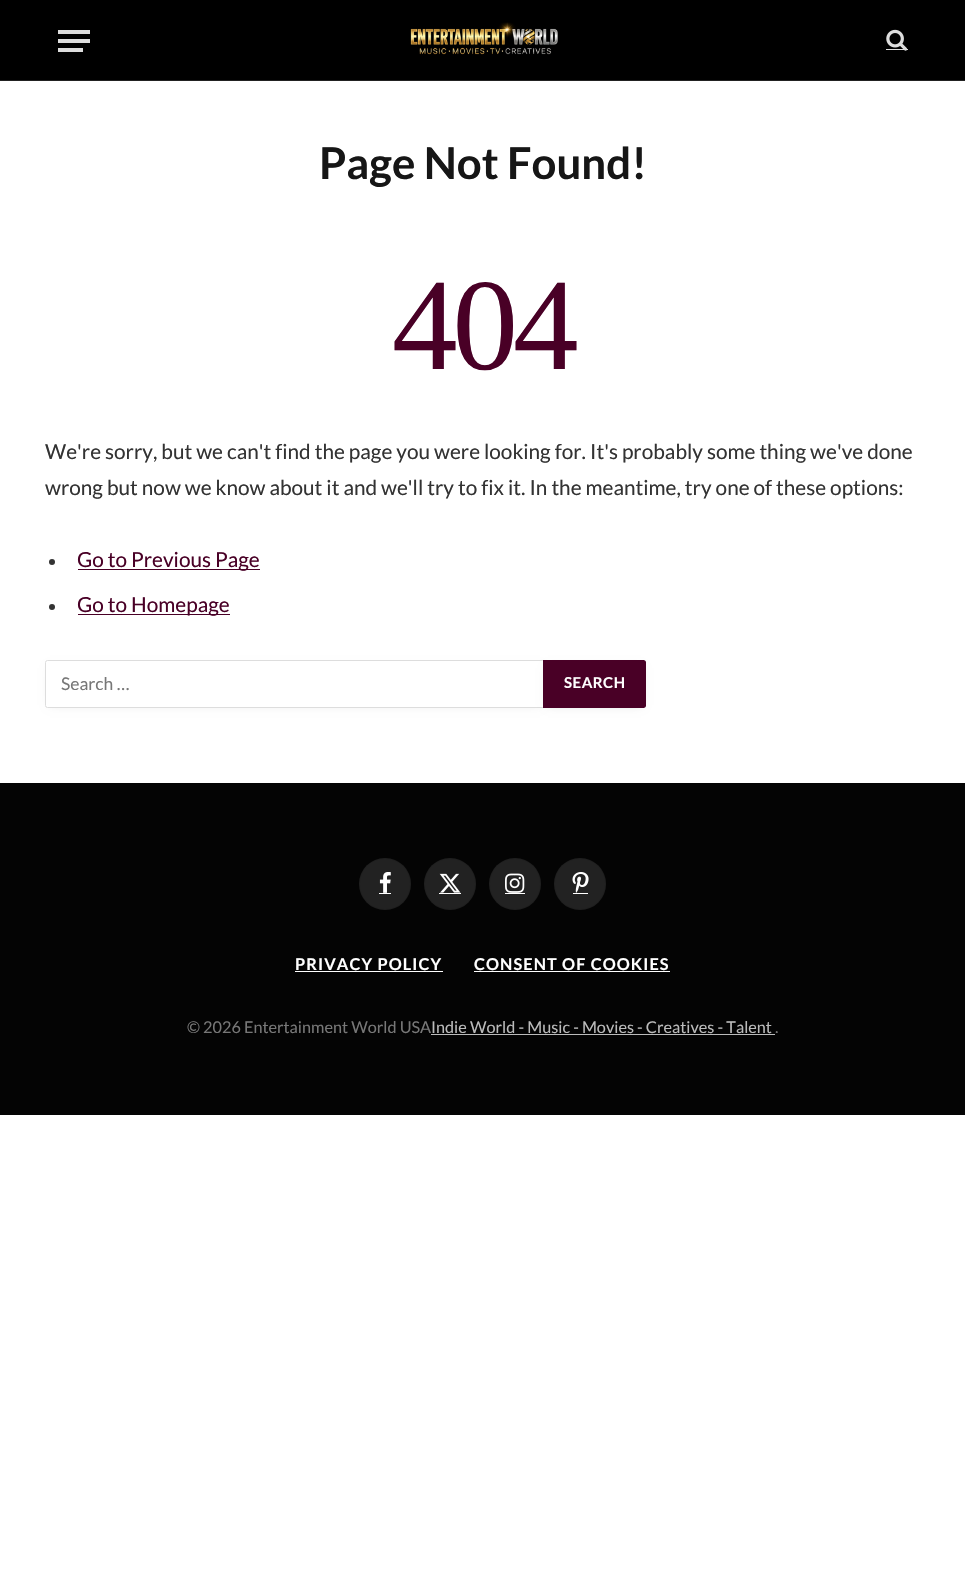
void draw(SkCanvas* canvas) {
    SkPaint paint;
    paint.setAntiAlias(true);
    auto face = [&](const char* family, int weight, float size, bool italic = false) {
        SkFontStyle style(weight, SkFontStyle::kNormal_Width,
            italic ? SkFontStyle::kItalic_Slant : SkFontStyle::kUpright_Slant);
        SkFont result(fontMgr->matchFamilyStyle(family, style), size);
        result.setSubpixel(true);
        return result;
    };
    auto write = [&](const char* s, float x, float y, const SkFont& font, SkColor color) {
        SkPaint ink(SkColor4f::FromColor(color));
        ink.setAntiAlias(true);
        canvas->drawString(s, x, y, font, ink);
    };
    auto writeSpaced = [&](const char* s, float x, float y, const SkFont& font, const SkPaint& ink, float letter, float word) {
        std::vector<SkGlyphID> glyphs(font.countText(s, strlen(s), SkTextEncoding::kUTF8));
        std::vector<float> xs(glyphs.size());
        font.textToGlyphs(s, strlen(s), SkTextEncoding::kUTF8, glyphs);
        font.getXPos(glyphs, xs, x);
        float extra = 0;
        for (size_t i = 0; i < glyphs.size(); i++) {
            xs[i] += extra;
            extra += letter + word * (glyphs[i] == font.unicharToGlyph(' '));
        }
        canvas->drawTextBlob(SkTextBlob::MakeFromPosHGlyphs(glyphs, xs, y, font), 0, 0, ink);
    };
    auto block = [&](float x, float y, float w, float h, SkColor color) {
        SkPaint ink(SkColor4f::FromColor(color));
        ink.setAntiAlias(true);
        canvas->drawRect(SkRect::MakeXYWH(x, y, w, h), ink);
    };
    auto paste = [&](const char* path, float x, float y, float w, float h) {
        auto image = SkImages::DeferredFromEncodedData(SkData::MakeFromFileName(path));
        canvas->drawImageRect(image, SkRect::MakeXYWH(x, y, w, h), SkSamplingOptions());
    };
    canvas->clear(SK_ColorWHITE);
    block(0, 0, 965, 80, SK_ColorBLACK);
    block(0, 80, 965, 1, SkColorSetRGB(34, 34, 34));
    block(58, 48, 25, 4, SkColorSetRGB(221, 221, 221));
    block(58, 30, 32, 4, SkColorSetRGB(221, 221, 221));
    block(58, 39, 32, 4, SkColorSetRGB(221, 221, 221));
    paste("pic1.png", 410, 22, 148, 33);
    block(886, 49, 22, 1, SkColorSetRGB(221, 221, 221));
    paste("pic2.png", 886, 29, 22, 22);
    auto kFont1 = face("Lato", 700, 43.75f);
    write("Page Not Found!", 319, 179, kFont1, SkColorSetRGB(22, 22, 22));
    auto kFont2 = face("Liberation Serif", 400, 131);
    paint.setColor(SkColorSetRGB(73, 0, 38));
    writeSpaced("404", 392, 369, kFont2, paint, -5, 0);
    auto kFont3 = face("Lato", 400, 20.75f);
    write("We're sorry, but we can't find the page you were looking for. It's probably some thing we've done", 45, 459, kFont3, SkColorSetRGB(51, 51, 51));
    write("wrong but now we know about it and we'll try to fix it. In the meantime, try one of these options:", 45, 495, kFont3, SkColorSetRGB(51, 51, 51));
    paint.setColor(SkColorSetRGB(51, 51, 51));
    canvas->drawCircle(52, 562, 3, paint);
    block(78, 569, 182, 1, SkColorSetRGB(73, 0, 38));
    write("Go to Previous Page", 77, 567, kFont3, SkColorSetRGB(73, 0, 38));
    canvas->drawCircle(52, 607, 3, paint);
    block(78, 614, 152, 1, SkColorSetRGB(73, 0, 38));
    write("Go to Homepage", 77, 612, kFont3, SkColorSetRGB(73, 0, 38));
    paint.setColor(SkColorSetARGB(26, 0, 0, 0));
    paint.setMaskFilter(SkMaskFilter::MakeBlur(kNormal_SkBlurStyle, 4.5f));
    canvas->drawRect(SkRect::MakeXYWH(50, 668, 490, 37), paint);
    paint.setMaskFilter(nullptr);
    paint.setColor(SK_ColorWHITE);
    canvas->drawRoundRect(SkRect::MakeXYWH(45.5f, 660.5f, 499, 47), 2, 2, paint);
    paint.setStyle(SkPaint::kStroke_Style);
    paint.setStrokeWidth(1);
    paint.setColor(SkColorSetRGB(221, 221, 221));
    canvas->drawRoundRect(SkRect::MakeXYWH(45.5f, 660.5f, 499, 47), 2, 2, paint);
    auto kFont4 = face("Lato", 400, 17.5f);
    write("Search …", 61, 690, kFont4, SkColorSetRGB(119, 119, 119));
    paint.setStyle(SkPaint::kFill_Style);
    paint.setColor(SkColorSetARGB(41, 0, 0, 0));
    paint.setMaskFilter(SkMaskFilter::MakeBlur(kNormal_SkBlurStyle, 4.5f));
    canvas->drawRect(SkRect::MakeXYWH(548, 668, 93, 37), paint);
    paint.setMaskFilter(nullptr);
    paint.setColor(SkColorSetRGB(73, 0, 38));
    canvas->drawPath(SkPathBuilder().moveTo(543, 660).lineTo(643.5f, 660).cubicTo(645, 660, 646, 661, 646, 662.5f).lineTo(646, 705.5f).cubicTo(646, 707, 645, 708, 643.5f, 708).lineTo(543, 708).close().detach(), paint);
    auto kFont5 = face("Lato", 700, 15);
    paint.setColor(SK_ColorWHITE);
    writeSpaced("SEARCH", 564, 688, kFont5, paint, 0.5f, 0);
    block(0, 783, 965, 332, SkColorSetRGB(4, 4, 4));
    paint.setColor(SkColorSetRGB(34, 34, 34));
    canvas->drawCircle(385, 884, 26, paint);
    paint.setStyle(SkPaint::kStroke_Style);
    paint.setColor(SkColorSetARGB(23, 0, 0, 0));
    canvas->drawCircle(385, 884, 25.5f, paint);
    paste("pic3.png", 379, 872, 12, 21);
    block(379, 893, 12, 1, SK_ColorWHITE);
    paint.setStyle(SkPaint::kFill_Style);
    paint.setColor(SkColorSetRGB(34, 34, 34));
    canvas->drawCircle(450, 884, 26, paint);
    paint.setStyle(SkPaint::kStroke_Style);
    paint.setColor(SkColorSetARGB(23, 0, 0, 0));
    canvas->drawCircle(450, 884, 25.5f, paint);
    paste("pic4.png", 439, 873, 22, 20);
    block(439, 893, 22, 1, SK_ColorWHITE);
    paint.setStyle(SkPaint::kFill_Style);
    paint.setColor(SkColorSetRGB(34, 34, 34));
    canvas->drawCircle(515, 884, 26, paint);
    paint.setStyle(SkPaint::kStroke_Style);
    paint.setColor(SkColorSetARGB(23, 0, 0, 0));
    canvas->drawCircle(515, 884, 25.5f, paint);
    paste("pic5.png", 505, 873, 20, 20);
    block(505, 893, 20, 1, SK_ColorWHITE);
    paint.setStyle(SkPaint::kFill_Style);
    paint.setColor(SkColorSetRGB(34, 34, 34));
    canvas->drawCircle(580, 884, 26, paint);
    paint.setStyle(SkPaint::kStroke_Style);
    paint.setColor(SkColorSetARGB(23, 0, 0, 0));
    canvas->drawCircle(580, 884, 25.5f, paint);
    paste("pic6.png", 572, 872, 17, 21);
    block(573, 893, 15, 1, SK_ColorWHITE);
    auto kFont6 = face("Lato", 700, 16.25f);
    paint.setStyle(SkPaint::kFill_Style);
    paint.setColor(SK_ColorWHITE);
    writeSpaced("PRIVACY POLICY", 295, 970, kFont6, paint, 1.1f, 0);
    block(295, 971, 148, 1, SK_ColorWHITE);
    writeSpaced("CONSENT OF COOKIES", 474, 970, kFont6, paint, 1.1f, 0);
    block(474, 971, 196, 1, SK_ColorWHITE);
    auto kFont7 = face("Lato", 400, 16.25f);
    write("© 2026 Entertainment World USA", 187, 1033, kFont7, SkColorSetRGB(119, 119, 119));
    write("Indie World - Music - Movies - Creatives - Talent", 431, 1033, kFont7, SkColorSetRGB(187, 187, 187));
    block(431, 1034, 344, 1, SkColorSetRGB(187, 187, 187));
    write(".", 775, 1033, kFont7, SkColorSetRGB(119, 119, 119));
}
